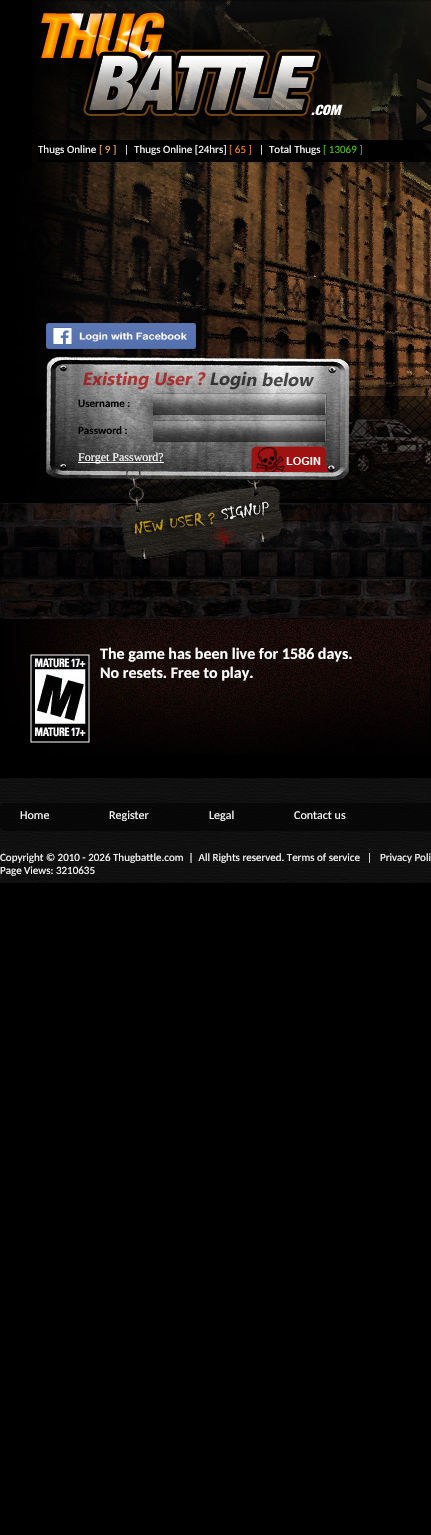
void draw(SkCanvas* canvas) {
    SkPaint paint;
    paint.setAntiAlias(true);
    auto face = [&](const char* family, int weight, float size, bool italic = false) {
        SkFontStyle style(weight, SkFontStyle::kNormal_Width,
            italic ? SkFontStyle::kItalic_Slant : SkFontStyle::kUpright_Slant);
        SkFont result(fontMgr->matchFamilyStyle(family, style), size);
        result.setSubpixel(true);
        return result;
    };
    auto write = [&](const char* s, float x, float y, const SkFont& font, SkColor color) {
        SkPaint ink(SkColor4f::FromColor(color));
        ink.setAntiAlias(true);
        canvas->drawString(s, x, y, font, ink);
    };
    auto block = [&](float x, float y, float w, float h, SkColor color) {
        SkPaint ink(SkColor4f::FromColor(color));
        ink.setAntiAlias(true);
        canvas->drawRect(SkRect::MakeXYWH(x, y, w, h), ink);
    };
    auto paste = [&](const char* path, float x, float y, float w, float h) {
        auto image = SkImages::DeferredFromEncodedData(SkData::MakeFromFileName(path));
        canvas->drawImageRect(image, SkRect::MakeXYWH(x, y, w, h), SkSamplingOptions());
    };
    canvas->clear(SK_ColorBLACK);
    paste("pic1.png", 0, 618, 2, 3);
    paste("pic2.png", 32, 0, 399, 170);
    paste("pic3.png", 41, 10, 328, 130);
    paste("pic4.png", 38, 140, 393, 22);
    auto kFont1 = face("Carlito", 400, 11);
    write("Thugs Online", 38, 153, kFont1, SK_ColorWHITE);
    write("[ 9 ]", 99, 153, kFont1, SkColorSetRGB(255, 185, 82));
    write("|  Thugs Online [24hrs]", 124, 153, kFont1, SK_ColorWHITE);
    write("[ 65 ]", 229, 153, kFont1, SkColorSetRGB(253, 138, 2));
    write("|", 259, 153, kFont1, SK_ColorWHITE);
    write("Total Thugs", 269, 153, kFont1, SK_ColorWHITE);
    write("[ 13069 ]", 323, 153, kFont1, SkColorSetRGB(77, 194, 13));
    paste("pic5.png", 0, 170, 431, 448);
    paste("pic6.png", 46, 323, 150, 26);
    paste("pic7.png", 46, 356, 304, 204);
    paste("pic8.png", 83, 371, 231, 19);
    auto kFont2 = face("Carlito", 700, 11);
    write("Username :", 78, 407, kFont2, SkColorSetRGB(0, 0, 1));
    paste("pic9.png", 153, 393, 174, 22);
    write("Password :", 78, 434, kFont2, SkColorSetRGB(0, 0, 1));
    paste("pic10.png", 153, 420, 174, 22);
    block(78, 462, 86, 1, SK_ColorWHITE);
    auto kFont3 = face("Liberation Serif", 400, 12);
    write("Forget Password?", 78, 461, kFont3, SK_ColorWHITE);
    paste("pic11.png", 251, 446, 77, 26);
    paste("pic12.png", 131, 512, 86, 24);
    paste("pic13.png", 217, 501, 52, 21);
    paste("pic14.png", 2, 618, 429, 137);
    paste("pic15.png", 30, 654, 60, 89);
    auto kFont4 = face("Carlito", 700, 16);
    write("The game has been live for 1586 days.", 100, 659, kFont4, SK_ColorWHITE);
    write("No resets. Free to play.", 100, 678, kFont4, SK_ColorWHITE);
    block(430, 654, 1, 84, SK_ColorBLACK);
    paste("pic16.png", 0, 778, 431, 105);
    paste("pic17.png", 0, 803, 431, 28);
    auto kFont5 = face("Carlito", 400, 12);
    write("Home", 20, 819, kFont5, SK_ColorWHITE);
    write("Register", 109, 819, kFont5, SK_ColorWHITE);
    write("Legal", 209, 819, kFont5, SK_ColorWHITE);
    write("Contact us", 294, 819, kFont5, SK_ColorWHITE);
    write("Copyright © 2010 - 2026 Thugbattle.com  |  All Rights reserved. Terms of service", 0, 861, kFont1, SK_ColorWHITE);
    write("|", 367, 861, kFont1, SK_ColorWHITE);
    write("Privacy Poli", 380, 861, kFont1, SK_ColorWHITE);
    write("Page Views: 3210635", 0, 874, kFont1, SK_ColorWHITE);
}
